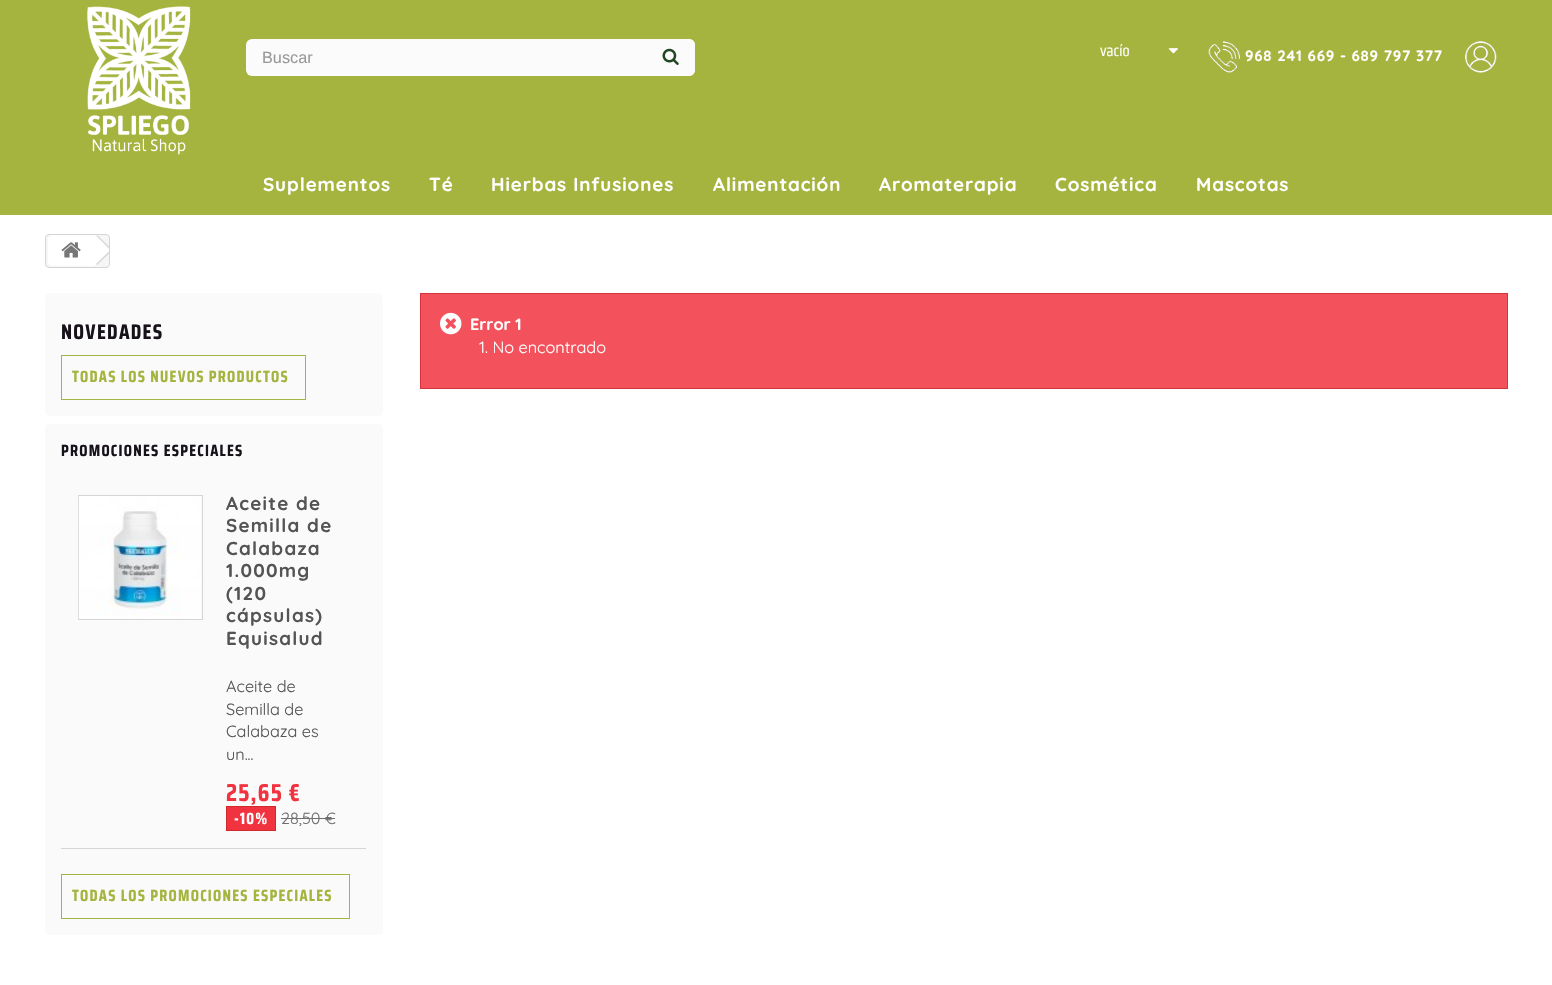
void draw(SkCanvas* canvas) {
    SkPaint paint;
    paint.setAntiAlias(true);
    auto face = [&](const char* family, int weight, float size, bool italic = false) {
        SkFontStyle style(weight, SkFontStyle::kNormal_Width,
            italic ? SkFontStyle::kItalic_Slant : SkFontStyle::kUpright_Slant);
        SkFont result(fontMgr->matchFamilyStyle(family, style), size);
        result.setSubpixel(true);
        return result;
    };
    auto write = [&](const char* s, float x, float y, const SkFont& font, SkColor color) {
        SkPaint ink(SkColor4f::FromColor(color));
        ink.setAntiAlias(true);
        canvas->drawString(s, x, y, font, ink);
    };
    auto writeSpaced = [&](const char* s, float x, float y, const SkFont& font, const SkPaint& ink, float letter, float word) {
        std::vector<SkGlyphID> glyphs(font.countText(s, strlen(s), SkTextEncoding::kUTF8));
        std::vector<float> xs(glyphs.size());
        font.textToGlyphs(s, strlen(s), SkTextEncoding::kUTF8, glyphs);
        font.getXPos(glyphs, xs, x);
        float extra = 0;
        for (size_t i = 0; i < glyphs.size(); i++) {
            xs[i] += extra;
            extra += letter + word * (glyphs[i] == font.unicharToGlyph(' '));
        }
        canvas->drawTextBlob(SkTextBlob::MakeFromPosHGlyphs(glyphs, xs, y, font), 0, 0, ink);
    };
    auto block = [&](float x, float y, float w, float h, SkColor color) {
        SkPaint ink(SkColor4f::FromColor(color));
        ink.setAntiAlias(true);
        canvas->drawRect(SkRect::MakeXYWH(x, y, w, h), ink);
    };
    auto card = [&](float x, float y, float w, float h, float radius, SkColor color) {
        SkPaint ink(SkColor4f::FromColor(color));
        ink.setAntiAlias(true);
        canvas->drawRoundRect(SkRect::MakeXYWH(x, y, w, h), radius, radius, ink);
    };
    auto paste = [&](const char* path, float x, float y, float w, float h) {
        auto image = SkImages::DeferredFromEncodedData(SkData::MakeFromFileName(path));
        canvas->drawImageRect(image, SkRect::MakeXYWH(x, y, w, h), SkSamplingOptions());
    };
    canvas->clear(SK_ColorWHITE);
    block(0, 0, 1552, 215, SkColorSetRGB(165, 180, 62));
    paste("pic1.png", 87, 6, 104, 149);
    card(246, 39, 449, 37, 6, SkColorSetRGB(251, 251, 251));
    auto kFont1 = face("Liberation Sans", 400, 16.25f);
    write("Buscar", 262, 63, kFont1, SkColorSetRGB(153, 153, 153));
    card(645, 39, 50, 37, 6, SkColorSetRGB(251, 251, 251));
    paste("pic2.png", 662, 48, 17, 17);
    auto kFont2 = face("Saira Condensed", 400, 16.25f);
    write("vacío", 1100, 56, kFont2, SK_ColorWHITE);
    paste("pic3.png", 1168, 48, 10, 6);
    paste("pic4.png", 1208, 41, 32, 32);
    auto kFont3 = face("Quicksand", 700, 15);
    paint.setColor(SK_ColorWHITE);
    writeSpaced("968 241 669 - 689 797 377", 1245, 61, kFont3, paint, 0.75f, 0);
    paste("pic5.png", 1465, 41, 32, 32);
    auto kFont4 = face("Quicksand", 700, 18.75f);
    writeSpaced("Suplementos", 263, 191, kFont4, paint, 0.9f, 0);
    writeSpaced("Té", 429, 191, kFont4, paint, 0.9f, 0);
    writeSpaced("Hierbas Infusiones", 491, 191, kFont4, paint, 0.9f, 0);
    writeSpaced("Alimentación", 713, 191, kFont4, paint, 0.9f, 0);
    writeSpaced("Aromaterapia", 879, 191, kFont4, paint, 0.9f, 0);
    writeSpaced("Cosmética", 1055, 191, kFont4, paint, 0.9f, 0);
    writeSpaced("Mascotas", 1196, 191, kFont4, paint, 0.9f, 0);
    paint.setColor(SkColorSetRGB(246, 246, 246));
    canvas->drawRoundRect(SkRect::MakeXYWH(45.5f, 234.5f, 64, 33), 3.5f, 3.5f, paint);
    paint.setStyle(SkPaint::kStroke_Style);
    paint.setStrokeWidth(1);
    paint.setColor(SkColorSetRGB(214, 212, 212));
    canvas->drawRoundRect(SkRect::MakeXYWH(45.5f, 234.5f, 64, 33), 3.5f, 3.5f, paint);
    paint.setStyle(SkPaint::kFill_Style);
    paint.setColor(SK_ColorWHITE);
    canvas->drawPath(SkPathBuilder().moveTo(52, 235).lineTo(95, 235).lineTo(95, 266).lineTo(52, 266).cubicTo(50, 266, 48, 264, 48, 262).lineTo(48, 239).cubicTo(48, 237, 50, 235, 52, 235).close().detach(), paint);
    paste("pic6.png", 61, 242, 20, 16);
    canvas->drawPath(SkPathBuilder().moveTo(98, 236).lineTo(109, 246.5f).lineTo(109, 253.5f).lineTo(98, 264).cubicTo(97, 265, 95.5f, 265, 94.5f, 264).lineTo(82, 252).cubicTo(81, 251, 81, 249, 82, 248).lineTo(94.5f, 236).cubicTo(95.5f, 235, 97, 235, 98, 236).close().detach(), paint);
    paint.setColor(SkColorSetRGB(214, 212, 212));
    canvas->drawPath(SkPathBuilder().moveTo(97, 235).lineTo(109, 246.5f).lineTo(109, 248.5f).lineTo(96.5f, 236).close().moveTo(109, 251.5f).lineTo(109, 253.5f).lineTo(97, 265).lineTo(96, 264).close().detach(), paint);
    card(45, 293, 338, 123, 5, SkColorSetRGB(250, 250, 250));
    auto kFont5 = face("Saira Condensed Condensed", 700, 21.25f);
    paint.setColor(SkColorSetRGB(23, 18, 26));
    writeSpaced("NOVEDADES", 61, 339, kFont5, paint, 1.25f, 0);
    paint.setStyle(SkPaint::kStroke_Style);
    paint.setColor(SkColorSetRGB(165, 180, 62));
    canvas->drawRect(SkRect::MakeXYWH(61.5f, 355.5f, 244, 44), paint);
    auto kFont6 = face("Saira Condensed Condensed", 700, 16.25f);
    paint.setStyle(SkPaint::kFill_Style);
    writeSpaced("TODAS LOS NUEVOS PRODUCTOS", 72, 382, kFont6, paint, 1.25f, 0);
    card(45, 424, 338, 511, 5, SkColorSetRGB(250, 250, 250));
    paint.setColor(SkColorSetRGB(23, 18, 26));
    writeSpaced("PROMOCIONES ESPECIALES", 61, 456, kFont6, paint, 1.25f, 0);
    block(61, 848, 305, 1, SkColorSetRGB(214, 212, 212));
    paint.setStyle(SkPaint::kStroke_Style);
    paint.setColor(SkColorSetRGB(214, 212, 212));
    canvas->drawRect(SkRect::MakeXYWH(78.5f, 495.5f, 124, 124), paint);
    paste("pic7.png", 78, 496, 123, 123);
    paint.setStyle(SkPaint::kFill_Style);
    paint.setColor(SkColorSetRGB(85, 84, 84));
    writeSpaced("Aceite de", 226, 510, kFont4, paint, 1.25f, 0);
    writeSpaced("Semilla de", 226, 532, kFont4, paint, 1.25f, 0);
    writeSpaced("Calabaza", 226, 555, kFont4, paint, 1.25f, 0);
    writeSpaced("1.000mg", 226, 577, kFont4, paint, 1.25f, 0);
    writeSpaced("(120", 226, 600, kFont4, paint, 1.25f, 0);
    writeSpaced("cápsulas)", 226, 622, kFont4, paint, 1.25f, 0);
    writeSpaced("Equisalud", 226, 645, kFont4, paint, 1.25f, 0);
    auto kFont7 = face("Quicksand", 400, 16.25f);
    write("Aceite de", 226, 692, kFont7, SkColorSetRGB(85, 84, 84));
    write("Semilla de", 226, 715, kFont7, SkColorSetRGB(85, 84, 84));
    write("Calabaza es", 226, 737, kFont7, SkColorSetRGB(85, 84, 84));
    write("un...", 226, 760, kFont7, SkColorSetRGB(85, 84, 84));
    auto kFont8 = face("Saira Condensed Condensed", 700, 24.5f);
    paint.setColor(SkColorSetRGB(241, 51, 64));
    writeSpaced("25,65 €", 226, 801, kFont8, paint, 1.25f, 0);
    canvas->drawRect(SkRect::MakeXYWH(226.5f, 806.5f, 49, 24), paint);
    paint.setStyle(SkPaint::kStroke_Style);
    paint.setColor(SkColorSetRGB(208, 42, 44));
    canvas->drawRect(SkRect::MakeXYWH(226.5f, 806.5f, 49, 24), paint);
    paint.setStyle(SkPaint::kFill_Style);
    paint.setColor(SK_ColorWHITE);
    writeSpaced("-10%", 234, 824, kFont6, paint, 1.25f, 0);
    write("28,50 €", 281, 824, kFont7, SkColorSetRGB(111, 111, 111));
    block(281, 818, 54, 1, SkColorSetRGB(111, 111, 111));
    paint.setStyle(SkPaint::kStroke_Style);
    paint.setColor(SkColorSetRGB(165, 180, 62));
    canvas->drawRect(SkRect::MakeXYWH(61.5f, 874.5f, 288, 44), paint);
    paint.setStyle(SkPaint::kFill_Style);
    writeSpaced("TODAS LOS PROMOCIONES ESPECIALES", 72, 901, kFont6, paint, 1.25f, 0);
    paint.setColor(SkColorSetRGB(243, 81, 92));
    canvas->drawRect(SkRect::MakeXYWH(420.5f, 293.5f, 1087, 95), paint);
    paint.setStyle(SkPaint::kStroke_Style);
    paint.setColor(SkColorSetRGB(212, 50, 61));
    canvas->drawRect(SkRect::MakeXYWH(420.5f, 293.5f, 1087, 95), paint);
    paste("pic8.png", 440, 312, 22, 23);
    auto kFont9 = face("Quicksand", 700, 16.25f);
    write("Error 1", 470, 330, kFont9, SK_ColorWHITE);
    write("1. No encontrado", 479, 353, kFont7, SK_ColorWHITE);
}
